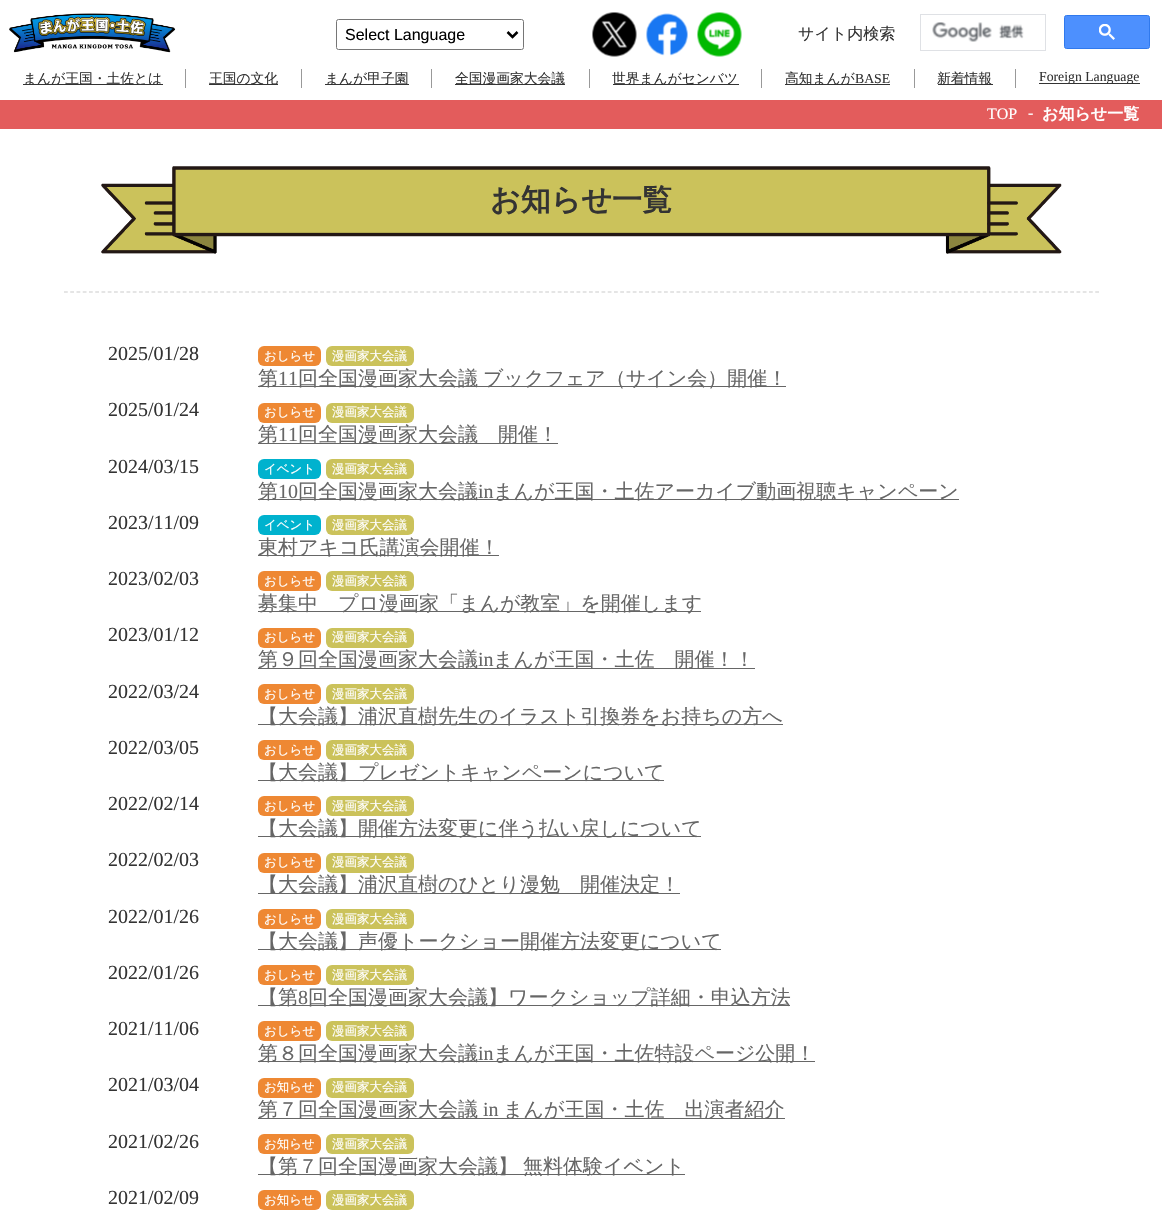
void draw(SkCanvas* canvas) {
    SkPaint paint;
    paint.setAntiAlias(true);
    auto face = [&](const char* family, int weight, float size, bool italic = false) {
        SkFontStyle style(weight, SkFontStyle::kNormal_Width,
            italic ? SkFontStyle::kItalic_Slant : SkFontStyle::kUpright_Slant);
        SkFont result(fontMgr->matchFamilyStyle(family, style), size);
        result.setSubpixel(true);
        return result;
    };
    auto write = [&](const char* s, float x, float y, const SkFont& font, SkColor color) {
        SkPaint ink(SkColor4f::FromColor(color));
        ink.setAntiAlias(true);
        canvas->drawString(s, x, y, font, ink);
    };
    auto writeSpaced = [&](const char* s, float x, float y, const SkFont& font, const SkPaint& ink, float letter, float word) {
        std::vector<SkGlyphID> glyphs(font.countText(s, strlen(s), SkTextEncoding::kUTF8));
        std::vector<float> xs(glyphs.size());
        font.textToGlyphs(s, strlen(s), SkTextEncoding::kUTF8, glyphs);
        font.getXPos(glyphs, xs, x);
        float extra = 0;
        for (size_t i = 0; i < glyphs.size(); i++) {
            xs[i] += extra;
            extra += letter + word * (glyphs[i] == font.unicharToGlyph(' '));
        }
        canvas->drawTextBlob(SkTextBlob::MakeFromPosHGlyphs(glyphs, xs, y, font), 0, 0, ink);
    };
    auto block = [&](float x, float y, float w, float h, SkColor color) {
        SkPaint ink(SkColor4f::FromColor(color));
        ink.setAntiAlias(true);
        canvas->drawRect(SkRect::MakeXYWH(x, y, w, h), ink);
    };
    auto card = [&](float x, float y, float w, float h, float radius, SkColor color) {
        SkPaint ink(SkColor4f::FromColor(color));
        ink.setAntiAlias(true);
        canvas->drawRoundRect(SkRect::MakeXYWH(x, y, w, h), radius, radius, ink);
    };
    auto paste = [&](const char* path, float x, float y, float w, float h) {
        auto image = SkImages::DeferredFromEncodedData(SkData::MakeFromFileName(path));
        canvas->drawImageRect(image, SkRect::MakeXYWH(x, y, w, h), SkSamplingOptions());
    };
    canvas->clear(SkColorSetRGB(227, 92, 92));
    block(0, 0, 1162, 100, SK_ColorWHITE);
    paste("pic1.png", 9, 13, 167, 40);
    paint.setStyle(SkPaint::kStroke_Style);
    paint.setStrokeWidth(1);
    paint.setColor(SkColorSetRGB(118, 118, 118));
    canvas->drawRoundRect(SkRect::MakeXYWH(336.5f, 19.5f, 187, 30), 2, 2, paint);
    paint.setStrokeWidth(2.5f);
    paint.setColor(SK_ColorBLACK);
    canvas->drawPath(SkPathBuilder().moveTo(507.5f, 32).lineTo(512.5f, 37).lineTo(517.5f, 32).detach(), paint);
    auto kFont1 = face("Liberation Sans", 400, 16);
    write("Select Language", 345, 40, kFont1, SK_ColorBLACK);
    paste("pic2.png", 592, 12, 45, 45);
    paste("pic3.png", 646, 13, 42, 43);
    paste("pic4.png", 697, 12, 45, 45);
    auto kFont2 = face("WenQuanYi Zen Hei", 500, 16);
    write("サイト内検索", 798, 39, kFont2, SkColorSetRGB(51, 51, 51));
    paint.setStrokeWidth(1);
    paint.setColor(SkColorSetRGB(223, 225, 229));
    canvas->drawRect(SkRect::MakeXYWH(920.5f, 14.5f, 125, 36), paint);
    paste("pic5.png", 932, 22, 92, 20);
    paint.setStyle(SkPaint::kFill_Style);
    paint.setColor(SkColorSetRGB(77, 144, 254));
    canvas->drawRoundRect(SkRect::MakeXYWH(1064.5f, 15.5f, 85, 33), 2, 2, paint);
    paint.setStyle(SkPaint::kStroke_Style);
    paint.setColor(SkColorSetRGB(48, 121, 237));
    canvas->drawRoundRect(SkRect::MakeXYWH(1064.5f, 15.5f, 85, 33), 2, 2, paint);
    paste("pic6.png", 1099, 24, 16, 16);
    block(185, 69, 1, 19, SkColorSetRGB(153, 153, 153));
    block(23, 84, 140, 1, SkColorSetRGB(51, 51, 51));
    auto kFont3 = face("WenQuanYi Zen Hei", 500, 13.75f);
    write("まんが王国・土佐とは", 23, 83, kFont3, SkColorSetRGB(51, 51, 51));
    block(301, 69, 1, 19, SkColorSetRGB(153, 153, 153));
    block(209, 84, 69, 1, SkColorSetRGB(51, 51, 51));
    write("王国の文化", 209, 83, kFont3, SkColorSetRGB(51, 51, 51));
    block(431, 69, 1, 19, SkColorSetRGB(153, 153, 153));
    block(325, 84, 84, 1, SkColorSetRGB(51, 51, 51));
    write("まんが甲子園", 325, 83, kFont3, SkColorSetRGB(51, 51, 51));
    block(589, 69, 1, 19, SkColorSetRGB(153, 153, 153));
    block(455, 84, 110, 1, SkColorSetRGB(51, 51, 51));
    write("全国漫画家大会議", 455, 83, kFont3, SkColorSetRGB(51, 51, 51));
    block(761, 69, 1, 19, SkColorSetRGB(153, 153, 153));
    block(613, 84, 126, 1, SkColorSetRGB(51, 51, 51));
    write("世界まんがセンバツ", 612, 83, kFont3, SkColorSetRGB(51, 51, 51));
    block(914, 69, 1, 19, SkColorSetRGB(153, 153, 153));
    block(785, 84, 105, 1, SkColorSetRGB(51, 51, 51));
    write("高知まんが", 785, 83, kFont3, SkColorSetRGB(51, 51, 51));
    auto kFont4 = face("Liberation Serif", 400, 13.75f);
    write("BASE", 855, 83, kFont4, SkColorSetRGB(51, 51, 51));
    block(1015, 69, 1, 19, SkColorSetRGB(153, 153, 153));
    block(938, 84, 55, 1, SkColorSetRGB(51, 51, 51));
    write("新着情報", 937, 83, kFont3, SkColorSetRGB(51, 51, 51));
    block(1039, 83, 101, 1, SkColorSetRGB(51, 51, 51));
    write("Foreign Language", 1039, 81, kFont4, SkColorSetRGB(51, 51, 51));
    auto kFont5 = face("Liberation Serif", 400, 16);
    write("TOP", 987, 119, kFont5, SK_ColorWHITE);
    write("-", 1028, 118, kFont5, SK_ColorWHITE);
    auto kFont6 = face("WenQuanYi Zen Hei", 700, 16);
    write("お知らせ一覧", 1042, 119, kFont6, SK_ColorWHITE);
    paint.setStyle(SkPaint::kFill_Style);
    paint.setColor(SK_ColorWHITE);
    canvas->drawPath(SkPathBuilder().moveTo(0, 129).lineTo(1162, 129).lineTo(1162, 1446).cubicTo(1162, 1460, 902, 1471, 581, 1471).cubicTo(260, 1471, 0, 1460, 0, 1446).close().detach(), paint);
    paste("pic7.png", 101, 166, 961, 88);
    auto kFont7 = face("WenQuanYi Zen Hei", 700, 30);
    write("お知らせ一覧", 490, 210, kFont7, SkColorSetRGB(51, 51, 51));
    paint.setStyle(SkPaint::kStroke_Style);
    paint.setStrokeWidth(1.2f);
    paint.setColor(SkColorSetRGB(204, 204, 204));
    paint.setPathEffect(SkDashPathEffect::Make({{3.75f, 2.5f}}, 0));
    canvas->drawPath(SkPathBuilder().moveTo(64, 292).lineTo(1099, 292).detach(), paint);
    paint.setPathEffect(nullptr);
    auto kFont8 = face("Liberation Serif", 400, 20);
    write("2025/01/28", 108, 360, kFont8, SkColorSetRGB(51, 51, 51));
    card(258, 346, 63, 20, 6, SkColorSetRGB(238, 136, 51));
    auto kFont9 = face("WenQuanYi Zen Hei", 500, 12.5f);
    write("おしらせ", 264, 360, kFont9, SK_ColorWHITE);
    card(326, 346, 88, 20, 6, SkColorSetRGB(203, 194, 91));
    write("漫画家大会議", 332, 360, kFont9, SK_ColorWHITE);
    block(258, 386, 528, 1, SkColorSetRGB(102, 102, 102));
    auto kFont10 = face("WenQuanYi Zen Hei", 500, 20);
    write("第", 258, 385, kFont10, SkColorSetRGB(102, 102, 102));
    write("11", 278, 385, kFont8, SkColorSetRGB(102, 102, 102));
    paint.setStyle(SkPaint::kFill_Style);
    paint.setColor(SkColorSetRGB(102, 102, 102));
    writeSpaced("回全国漫画家大会議 ブックフェア（サイン会）開催！", 298, 385, kFont10, paint, 0, -1);
    write("2025/01/24", 108, 416, kFont8, SkColorSetRGB(51, 51, 51));
    card(258, 403, 63, 20, 6, SkColorSetRGB(238, 136, 51));
    write("おしらせ", 264, 416, kFont9, SK_ColorWHITE);
    card(326, 403, 88, 20, 6, SkColorSetRGB(203, 194, 91));
    write("漫画家大会議", 332, 416, kFont9, SK_ColorWHITE);
    block(258, 443, 300, 1, SkColorSetRGB(102, 102, 102));
    write("第", 258, 441, kFont10, SkColorSetRGB(102, 102, 102));
    write("11", 278, 441, kFont8, SkColorSetRGB(102, 102, 102));
    write("回全国漫画家大会議　開催！", 298, 441, kFont10, SkColorSetRGB(102, 102, 102));
    write("2024/03/15", 108, 473, kFont8, SkColorSetRGB(51, 51, 51));
    card(258, 459, 63, 20, 6, SkColorSetRGB(0, 178, 206));
    write("イベント", 264, 473, kFont9, SK_ColorWHITE);
    card(326, 459, 88, 20, 6, SkColorSetRGB(203, 194, 91));
    write("漫画家大会議", 332, 473, kFont9, SK_ColorWHITE);
    block(258, 499, 701, 1, SkColorSetRGB(102, 102, 102));
    write("第", 258, 498, kFont10, SkColorSetRGB(102, 102, 102));
    write("10", 278, 498, kFont8, SkColorSetRGB(102, 102, 102));
    write("回全国漫画家大会議", 298, 498, kFont10, SkColorSetRGB(102, 102, 102));
    write("in", 478, 498, kFont8, SkColorSetRGB(102, 102, 102));
    write("まんが王国・土佐アーカイブ動画視聴キャンペーン", 493, 498, kFont10, SkColorSetRGB(102, 102, 102));
    write("2023/11/09", 108, 529, kFont8, SkColorSetRGB(51, 51, 51));
    card(258, 515, 63, 20, 6, SkColorSetRGB(0, 178, 206));
    write("イベント", 264, 529, kFont9, SK_ColorWHITE);
    card(326, 515, 88, 20, 6, SkColorSetRGB(203, 194, 91));
    write("漫画家大会議", 332, 529, kFont9, SK_ColorWHITE);
    block(258, 555, 241, 1, SkColorSetRGB(102, 102, 102));
    write("東村アキコ氏講演会開催！", 258, 554, kFont10, SkColorSetRGB(102, 102, 102));
    write("2023/02/03", 108, 585, kFont8, SkColorSetRGB(51, 51, 51));
    card(258, 571, 63, 20, 6, SkColorSetRGB(238, 136, 51));
    write("おしらせ", 264, 585, kFont9, SK_ColorWHITE);
    card(326, 571, 88, 20, 6, SkColorSetRGB(203, 194, 91));
    write("漫画家大会議", 332, 585, kFont9, SK_ColorWHITE);
    block(258, 611, 443, 1, SkColorSetRGB(102, 102, 102));
    write("募集中　プロ漫画家「まんが教室」を開催します", 258, 610, kFont10, SkColorSetRGB(102, 102, 102));
    write("2023/01/12", 108, 641, kFont8, SkColorSetRGB(51, 51, 51));
    card(258, 628, 63, 20, 6, SkColorSetRGB(238, 136, 51));
    write("おしらせ", 264, 641, kFont9, SK_ColorWHITE);
    card(326, 628, 88, 20, 6, SkColorSetRGB(203, 194, 91));
    write("漫画家大会議", 332, 641, kFont9, SK_ColorWHITE);
    block(258, 668, 497, 1, SkColorSetRGB(102, 102, 102));
    write("第９回全国漫画家大会議", 258, 666, kFont10, SkColorSetRGB(102, 102, 102));
    write("in", 478, 666, kFont8, SkColorSetRGB(102, 102, 102));
    write("まんが王国・土佐　開催！！", 493, 666, kFont10, SkColorSetRGB(102, 102, 102));
    write("2022/03/24", 108, 698, kFont8, SkColorSetRGB(51, 51, 51));
    card(258, 684, 63, 20, 6, SkColorSetRGB(238, 136, 51));
    write("おしらせ", 264, 698, kFont9, SK_ColorWHITE);
    card(326, 684, 88, 20, 6, SkColorSetRGB(203, 194, 91));
    write("漫画家大会議", 332, 698, kFont9, SK_ColorWHITE);
    block(258, 724, 525, 1, SkColorSetRGB(102, 102, 102));
    write("【大会議】浦沢直樹先生のイラスト引換券をお持ちの方へ", 258, 723, kFont10, SkColorSetRGB(102, 102, 102));
    write("2022/03/05", 108, 754, kFont8, SkColorSetRGB(51, 51, 51));
    card(258, 740, 63, 20, 6, SkColorSetRGB(238, 136, 51));
    write("おしらせ", 264, 754, kFont9, SK_ColorWHITE);
    card(326, 740, 88, 20, 6, SkColorSetRGB(203, 194, 91));
    write("漫画家大会議", 332, 754, kFont9, SK_ColorWHITE);
    block(258, 780, 406, 1, SkColorSetRGB(102, 102, 102));
    write("【大会議】プレゼントキャンペーンについて", 258, 779, kFont10, SkColorSetRGB(102, 102, 102));
    write("2022/02/14", 108, 810, kFont8, SkColorSetRGB(51, 51, 51));
    card(258, 796, 63, 20, 6, SkColorSetRGB(238, 136, 51));
    write("おしらせ", 264, 810, kFont9, SK_ColorWHITE);
    card(326, 796, 88, 20, 6, SkColorSetRGB(203, 194, 91));
    write("漫画家大会議", 332, 810, kFont9, SK_ColorWHITE);
    block(258, 836, 443, 1, SkColorSetRGB(102, 102, 102));
    write("【大会議】開催方法変更に伴う払い戻しについて", 258, 835, kFont10, SkColorSetRGB(102, 102, 102));
    write("2022/02/03", 108, 866, kFont8, SkColorSetRGB(51, 51, 51));
    card(258, 853, 63, 20, 6, SkColorSetRGB(238, 136, 51));
    write("おしらせ", 264, 866, kFont9, SK_ColorWHITE);
    card(326, 853, 88, 20, 6, SkColorSetRGB(203, 194, 91));
    write("漫画家大会議", 332, 866, kFont9, SK_ColorWHITE);
    block(258, 893, 422, 1, SkColorSetRGB(102, 102, 102));
    write("【大会議】浦沢直樹のひとり漫勉　開催決定！", 258, 891, kFont10, SkColorSetRGB(102, 102, 102));
    write("2022/01/26", 108, 923, kFont8, SkColorSetRGB(51, 51, 51));
    card(258, 909, 63, 20, 6, SkColorSetRGB(238, 136, 51));
    write("おしらせ", 264, 923, kFont9, SK_ColorWHITE);
    card(326, 909, 88, 20, 6, SkColorSetRGB(203, 194, 91));
    write("漫画家大会議", 332, 923, kFont9, SK_ColorWHITE);
    block(258, 949, 463, 1, SkColorSetRGB(102, 102, 102));
    write("【大会議】声優トークショー開催方法変更について", 258, 948, kFont10, SkColorSetRGB(102, 102, 102));
    write("2022/01/26", 108, 979, kFont8, SkColorSetRGB(51, 51, 51));
    card(258, 965, 63, 20, 6, SkColorSetRGB(238, 136, 51));
    write("おしらせ", 264, 979, kFont9, SK_ColorWHITE);
    card(326, 965, 88, 20, 6, SkColorSetRGB(203, 194, 91));
    write("漫画家大会議", 332, 979, kFont9, SK_ColorWHITE);
    block(258, 1005, 532, 1, SkColorSetRGB(102, 102, 102));
    write("【第", 258, 1004, kFont10, SkColorSetRGB(102, 102, 102));
    write("8", 298, 1004, kFont8, SkColorSetRGB(102, 102, 102));
    write("回全国漫画家大会議】ワークショップ詳細・申込方法", 308, 1004, kFont10, SkColorSetRGB(102, 102, 102));
    write("2021/11/06", 108, 1035, kFont8, SkColorSetRGB(51, 51, 51));
    card(258, 1021, 63, 20, 6, SkColorSetRGB(238, 136, 51));
    write("おしらせ", 264, 1035, kFont9, SK_ColorWHITE);
    card(326, 1021, 88, 20, 6, SkColorSetRGB(203, 194, 91));
    write("漫画家大会議", 332, 1035, kFont9, SK_ColorWHITE);
    block(258, 1061, 557, 1, SkColorSetRGB(102, 102, 102));
    write("第８回全国漫画家大会議", 258, 1060, kFont10, SkColorSetRGB(102, 102, 102));
    write("in", 478, 1060, kFont8, SkColorSetRGB(102, 102, 102));
    write("まんが王国・土佐特設ページ公開！", 493, 1060, kFont10, SkColorSetRGB(102, 102, 102));
    write("2021/03/04", 108, 1091, kFont8, SkColorSetRGB(51, 51, 51));
    card(258, 1078, 63, 20, 6, SkColorSetRGB(238, 136, 51));
    write("お知らせ", 264, 1091, kFont9, SK_ColorWHITE);
    card(326, 1078, 88, 20, 6, SkColorSetRGB(203, 194, 91));
    write("漫画家大会議", 332, 1091, kFont9, SK_ColorWHITE);
    block(258, 1118, 527, 1, SkColorSetRGB(102, 102, 102));
    write("第７回全国漫画家大会議", 258, 1116, kFont10, SkColorSetRGB(102, 102, 102));
    write("in", 483, 1116, kFont8, SkColorSetRGB(102, 102, 102));
    write("まんが王国・土佐　出演者紹介", 503, 1116, kFont10, SkColorSetRGB(102, 102, 102));
    write("2021/02/26", 108, 1148, kFont8, SkColorSetRGB(51, 51, 51));
    card(258, 1134, 63, 20, 6, SkColorSetRGB(238, 136, 51));
    write("お知らせ", 264, 1148, kFont9, SK_ColorWHITE);
    card(326, 1134, 88, 20, 6, SkColorSetRGB(203, 194, 91));
    write("漫画家大会議", 332, 1148, kFont9, SK_ColorWHITE);
    block(258, 1174, 427, 1, SkColorSetRGB(102, 102, 102));
    writeSpaced("【第７回全国漫画家大会議】 無料体験イベント", 258, 1173, kFont10, paint, 0, -1);
    write("2021/02/09", 108, 1204, kFont8, SkColorSetRGB(51, 51, 51));
    card(258, 1190, 63, 20, 6, SkColorSetRGB(238, 136, 51));
    write("お知らせ", 264, 1204, kFont9, SK_ColorWHITE);
    card(326, 1190, 88, 20, 6, SkColorSetRGB(203, 194, 91));
    write("漫画家大会議", 332, 1204, kFont9, SK_ColorWHITE);
}
